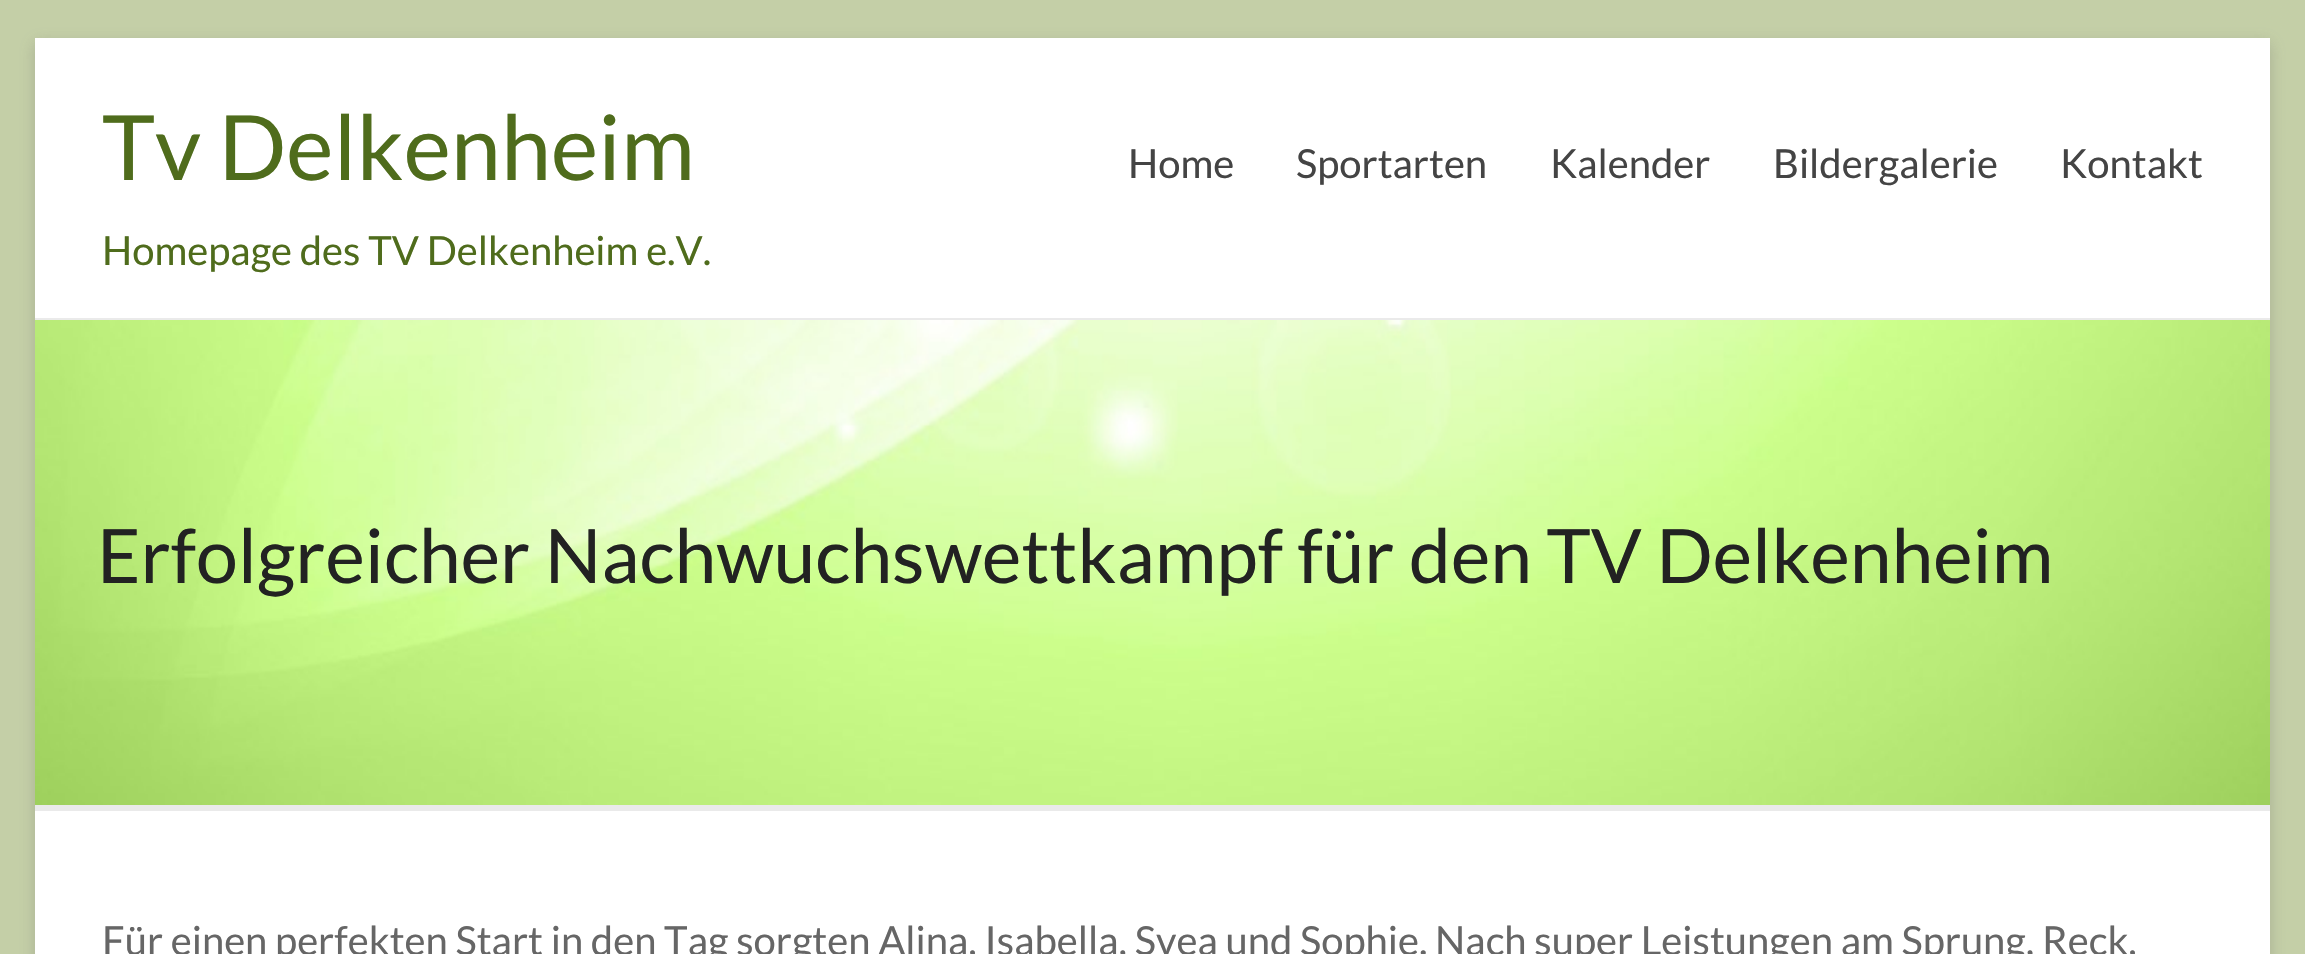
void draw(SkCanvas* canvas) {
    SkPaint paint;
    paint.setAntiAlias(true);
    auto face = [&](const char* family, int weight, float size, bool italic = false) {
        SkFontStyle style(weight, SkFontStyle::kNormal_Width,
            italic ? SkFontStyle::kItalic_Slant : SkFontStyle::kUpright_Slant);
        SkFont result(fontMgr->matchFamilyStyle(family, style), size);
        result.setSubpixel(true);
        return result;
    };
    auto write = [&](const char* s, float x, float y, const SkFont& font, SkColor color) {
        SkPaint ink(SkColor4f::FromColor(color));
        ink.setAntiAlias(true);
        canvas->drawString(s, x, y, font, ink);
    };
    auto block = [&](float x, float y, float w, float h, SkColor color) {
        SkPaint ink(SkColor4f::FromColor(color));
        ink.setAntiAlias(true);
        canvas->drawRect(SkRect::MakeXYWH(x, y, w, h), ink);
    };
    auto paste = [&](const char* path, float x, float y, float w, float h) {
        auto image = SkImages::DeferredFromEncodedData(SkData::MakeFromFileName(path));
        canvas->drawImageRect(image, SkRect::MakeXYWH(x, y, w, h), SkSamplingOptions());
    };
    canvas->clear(SkColorSetRGB(196, 207, 167));
    paint.setColor(SkColorSetARGB(77, 100, 100, 100));
    paint.setMaskFilter(SkMaskFilter::MakeBlur(kNormal_SkBlurStyle, 7.5f));
    canvas->drawRect(SkRect::MakeXYWH(35, 43, 2235, 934), paint);
    paint.setMaskFilter(nullptr);
    block(35, 38, 2235, 916, SK_ColorWHITE);
    block(35, 318, 2235, 2, SkColorSetRGB(234, 234, 234));
    auto kFont1 = face("Lato", 400, 90);
    write("Tv Delkenheim", 102, 180, kFont1, SkColorSetRGB(79, 108, 28));
    auto kFont2 = face("Lato", 400, 40);
    write("Homepage des TV Delkenheim e.V.", 102, 265, kFont2, SkColorSetRGB(79, 108, 28));
    write("Home", 1128, 178, kFont2, SkColorSetRGB(68, 68, 68));
    write("Sportarten", 1296, 178, kFont2, SkColorSetRGB(68, 68, 68));
    write("Kalender", 1550, 178, kFont2, SkColorSetRGB(68, 68, 68));
    write("Bildergalerie", 1773, 178, kFont2, SkColorSetRGB(68, 68, 68));
    write("Kontakt", 2060, 178, kFont2, SkColorSetRGB(68, 68, 68));
    block(35, 805, 2235, 6, SkColorSetRGB(234, 234, 234));
    paste("pic1.png", 35, 320, 2235, 485);
    auto kFont3 = face("Lato", 400, 75);
    write("Erfolgreicher Nachwuchswettkampf für den TV Delkenheim", 97, 583, kFont3, SkColorSetRGB(34, 34, 34));
    write("Für einen perfekten Start in den Tag sorgten Alina, Isabella, Svea und Sophie. Nach super Leistungen am Sprung, Reck,", 102, 955, kFont2, SkColorSetRGB(102, 102, 102));
}
